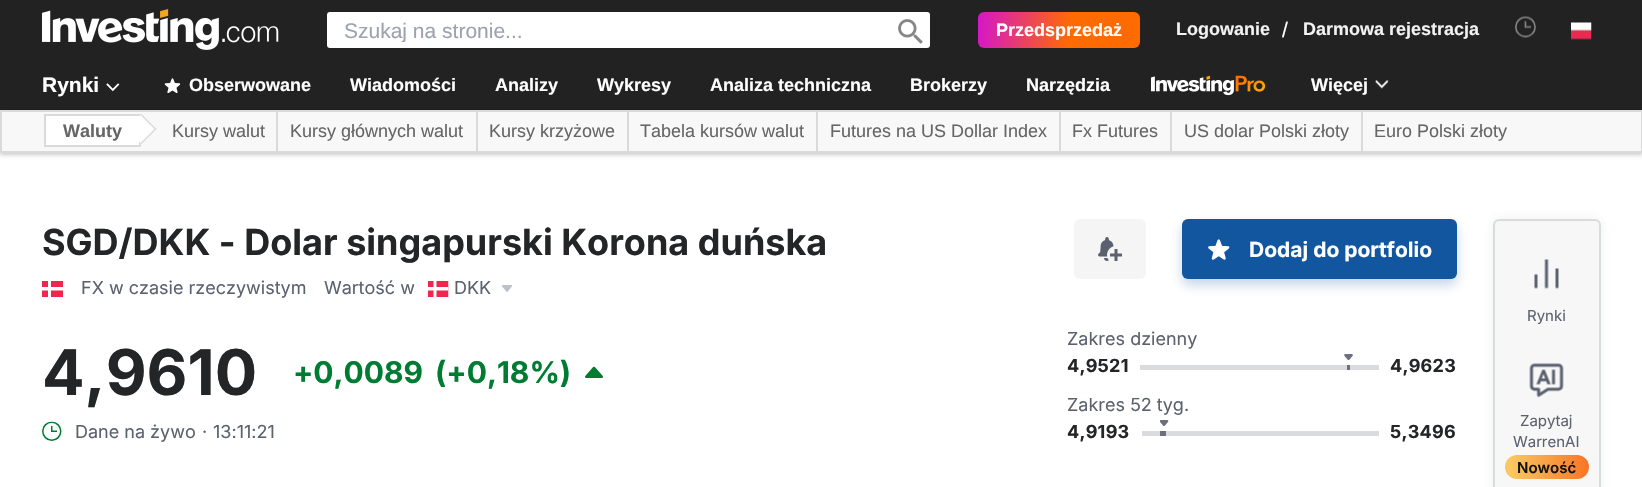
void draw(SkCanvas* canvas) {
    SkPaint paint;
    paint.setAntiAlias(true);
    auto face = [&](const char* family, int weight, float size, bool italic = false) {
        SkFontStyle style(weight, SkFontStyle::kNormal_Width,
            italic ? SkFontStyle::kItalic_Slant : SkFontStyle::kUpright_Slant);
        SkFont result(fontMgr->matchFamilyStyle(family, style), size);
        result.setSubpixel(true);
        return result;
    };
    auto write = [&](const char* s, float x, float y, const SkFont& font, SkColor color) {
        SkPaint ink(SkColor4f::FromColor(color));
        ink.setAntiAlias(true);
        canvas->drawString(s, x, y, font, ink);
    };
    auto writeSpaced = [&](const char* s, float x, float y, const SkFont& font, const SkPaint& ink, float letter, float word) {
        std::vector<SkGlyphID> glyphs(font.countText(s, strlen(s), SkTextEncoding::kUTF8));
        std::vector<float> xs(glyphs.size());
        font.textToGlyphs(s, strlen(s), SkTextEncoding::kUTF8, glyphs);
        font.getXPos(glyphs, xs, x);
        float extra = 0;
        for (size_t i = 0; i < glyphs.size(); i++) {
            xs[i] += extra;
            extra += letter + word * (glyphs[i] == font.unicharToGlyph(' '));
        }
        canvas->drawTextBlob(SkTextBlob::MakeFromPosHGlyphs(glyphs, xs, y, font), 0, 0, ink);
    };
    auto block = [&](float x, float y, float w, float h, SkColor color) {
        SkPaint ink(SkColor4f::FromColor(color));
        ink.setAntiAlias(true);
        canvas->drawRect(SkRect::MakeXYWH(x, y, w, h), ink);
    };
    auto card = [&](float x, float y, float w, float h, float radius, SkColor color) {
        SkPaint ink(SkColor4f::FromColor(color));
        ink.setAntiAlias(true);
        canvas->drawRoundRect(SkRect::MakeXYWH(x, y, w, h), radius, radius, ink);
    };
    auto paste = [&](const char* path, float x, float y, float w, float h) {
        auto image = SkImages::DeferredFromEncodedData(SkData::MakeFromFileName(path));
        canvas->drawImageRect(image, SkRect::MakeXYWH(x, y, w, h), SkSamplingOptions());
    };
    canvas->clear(SK_ColorWHITE);
    block(0, 0, 1642, 110, SkColorSetRGB(34, 34, 34));
    paste("pic1.png", 42, 9, 237, 41);
    card(327, 12, 603, 36, 3, SK_ColorWHITE);
    canvas->save();
    canvas->clipRect(SkRect::MakeXYWH(345, 18, 525, 24));
    auto kFont1 = face("Liberation Sans", 400, 21);
    write("Szukaj na stronie...", 344, 38, kFont1, SkColorSetRGB(156, 163, 175));
    canvas->restore();
    paste("pic2.png", 898, 19, 25, 25);
    {
        const SkColor colors[] = {SkColorSetRGB(255, 107, 0), SkColorSetRGB(200, 0, 255)};
        const float stops[] = {0.37f, 1};
        const SkPoint ends[] = {{1141, 36}, {952, 22}};
        paint.setShader(SkGradientShader::MakeLinear(ends, colors, stops, 2, SkTileMode::kClamp));
        paint.setAlpha(255);
    }
    canvas->drawRoundRect(SkRect::MakeXYWH(978, 12, 162, 36), 6, 6, paint);
    auto kFont2 = face("Liberation Sans", 700, 18);
    write("Przedsprzedaż", 996, 36, kFont2, SK_ColorWHITE);
    write("Logowanie", 1176, 35, kFont2, SkColorSetRGB(242, 242, 242));
    write("/", 1282, 37, kFont1, SK_ColorWHITE);
    write("Darmowa rejestracja", 1303, 35, kFont2, SkColorSetRGB(242, 242, 242));
    paste("pic3.png", 1515, 16, 21, 22);
    paste("pic4.png", 1571, 22, 21, 18);
    auto kFont3 = face("Liberation Sans", 700, 21);
    write("Rynki", 42, 92, kFont3, SK_ColorWHITE);
    paste("pic5.png", 106, 83, 14, 9);
    paste("pic6.png", 164, 78, 17, 15);
    write("Obserwowane", 189, 91, kFont2, SK_ColorWHITE);
    write("Wiadomości", 350, 91, kFont2, SK_ColorWHITE);
    write("Analizy", 495, 91, kFont2, SK_ColorWHITE);
    write("Wykresy", 597, 91, kFont2, SK_ColorWHITE);
    write("Analiza techniczna", 710, 91, kFont2, SK_ColorWHITE);
    write("Brokerzy", 910, 91, kFont2, SK_ColorWHITE);
    write("Narzędzia", 1026, 91, kFont2, SK_ColorWHITE);
    paste("pic7.png", 1151, 75, 115, 21);
    write("Więcej", 1311, 91, kFont2, SK_ColorWHITE);
    paste("pic8.png", 1375, 79, 14, 10);
    paint.setShader(nullptr);
    paint.setColor(SkColorSetARGB(51, 0, 0, 0));
    paint.setMaskFilter(SkMaskFilter::MakeBlur(kNormal_SkBlurStyle, 2));
    canvas->drawRect(SkRect::MakeXYWH(0, 111, 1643, 44), paint);
    paint.setMaskFilter(nullptr);
    paint.setColor(SkColorSetRGB(248, 248, 248));
    canvas->drawRect(SkRect::MakeXYWH(1, 111, 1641, 41), paint);
    paint.setStyle(SkPaint::kStroke_Style);
    paint.setStrokeWidth(2);
    paint.setColor(SkColorSetRGB(218, 218, 218));
    canvas->drawRect(SkRect::MakeXYWH(1, 111, 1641, 41), paint);
    paint.setStyle(SkPaint::kFill_Style);
    paint.setColor(SK_ColorWHITE);
    canvas->drawRect(SkRect::MakeXYWH(45, 115, 95, 31), paint);
    paint.setStyle(SkPaint::kStroke_Style);
    paint.setColor(SkColorSetRGB(218, 218, 218));
    canvas->drawRect(SkRect::MakeXYWH(45, 115, 95, 31), paint);
    write("Waluty", 63, 137, kFont2, SkColorSetRGB(102, 102, 102));
    paint.setStyle(SkPaint::kFill_Style);
    paint.setColor(SK_ColorWHITE);
    canvas->drawPath(SkPathBuilder().moveTo(141.5f, 114).lineTo(156.5f, 129).lineTo(141.5f, 144).lineTo(126.5f, 129).close().detach(), paint);
    paint.setColor(SkColorSetRGB(218, 218, 218));
    canvas->drawPath(SkPathBuilder().moveTo(141.5f, 114).lineTo(156.5f, 129).lineTo(155.5f, 130).lineTo(140.5f, 115).close().detach(), paint);
    canvas->drawPath(SkPathBuilder().moveTo(155.5f, 128).lineTo(156.5f, 129).lineTo(141.5f, 144).lineTo(140.5f, 143).close().detach(), paint);
    block(276, 111, 2, 41, SkColorSetRGB(218, 218, 218));
    auto kFont4 = face("Liberation Sans", 400, 18);
    write("Kursy walut", 172, 137, kFont4, SkColorSetRGB(102, 102, 102));
    block(476, 111, 2, 41, SkColorSetRGB(218, 218, 218));
    write("Kursy głównych walut", 290, 137, kFont4, SkColorSetRGB(102, 102, 102));
    block(627, 111, 2, 41, SkColorSetRGB(218, 218, 218));
    write("Kursy krzyżowe", 489, 137, kFont4, SkColorSetRGB(102, 102, 102));
    block(816, 111, 2, 41, SkColorSetRGB(218, 218, 218));
    write("Tabela kursów walut", 640, 137, kFont4, SkColorSetRGB(102, 102, 102));
    block(1059, 111, 2, 41, SkColorSetRGB(218, 218, 218));
    write("Futures na US Dollar Index", 830, 137, kFont4, SkColorSetRGB(102, 102, 102));
    block(1170, 111, 2, 41, SkColorSetRGB(218, 218, 218));
    write("Fx Futures", 1072, 137, kFont4, SkColorSetRGB(102, 102, 102));
    block(1361, 111, 2, 41, SkColorSetRGB(218, 218, 218));
    write("US dolar Polski złoty", 1184, 137, kFont4, SkColorSetRGB(102, 102, 102));
    write("Euro Polski złoty", 1374, 137, kFont4, SkColorSetRGB(102, 102, 102));
    auto kFont5 = face("Inter", 700, 36);
    write("SGD/DKK - Dolar singapurski Korona duńska", 42, 255, kFont5, SkColorSetRGB(35, 37, 38));
    paste("pic9.png", 42, 281, 21, 16);
    auto kFont6 = face("Inter", 400, 18);
    write("FX w czasie rzeczywistym", 81, 294, kFont6, SkColorSetRGB(91, 97, 110));
    write("Wartość w", 324, 294, kFont6, SkColorSetRGB(91, 97, 110));
    paste("pic10.png", 428, 281, 21, 16);
    write("DKK", 454, 294, kFont6, SkColorSetRGB(91, 97, 110));
    paste("pic11.png", 501, 285, 12, 7);
    card(1074, 219, 72, 60, 6, SkColorSetRGB(245, 245, 245));
    paste("pic12.png", 1098, 237, 24, 24);
    paint.setColor(SkColorSetARGB(64, 18, 86, 160));
    paint.setMaskFilter(SkMaskFilter::MakeBlur(kNormal_SkBlurStyle, 6));
    canvas->drawRoundRect(SkRect::MakeXYWH(1182, 225, 275, 60), 6, 6, paint);
    paint.setMaskFilter(nullptr);
    card(1182, 219, 275, 60, 6, SkColorSetRGB(18, 86, 160));
    paste("pic13.png", 1208, 239, 22, 21);
    auto kFont7 = face("Inter", 700, 21);
    write("Dodaj do portfolio", 1249, 257, kFont7, SK_ColorWHITE);
    auto kFont8 = face("Inter", 700, 63);
    write("4,9610", 42, 395, kFont8, SkColorSetRGB(35, 37, 38));
    auto kFont9 = face("Inter", 700, 30);
    write("+0,0089", 293, 383, kFont9, SkColorSetRGB(0, 124, 50));
    write("(+0,18%)", 435, 383, kFont9, SkColorSetRGB(0, 124, 50));
    paste("pic14.png", 585, 366, 18, 12);
    paste("pic15.png", 42, 421, 20, 20);
    write("Dane na żywo", 75, 438, kFont6, SkColorSetRGB(91, 97, 110));
    write("·", 202, 438, kFont6, SkColorSetRGB(91, 97, 110));
    write("13:11:21", 213, 438, kFont6, SkColorSetRGB(91, 97, 110));
    write("Zakres dzienny", 1067, 345, kFont6, SkColorSetRGB(91, 97, 110));
    auto kFont10 = face("Inter", 700, 18);
    paint.setColor(SkColorSetRGB(35, 37, 38));
    writeSpaced("4,9521", 1067, 372, kFont10, paint, 0.25f, 0);
    block(1140, 365, 239, 5, SkColorSetRGB(218, 219, 222));
    paste("pic16.png", 1344, 354, 9, 7);
    block(1347, 365, 3, 5, SkColorSetRGB(106, 112, 124));
    writeSpaced("4,9623", 1390, 372, kFont10, paint, 0.25f, 0);
    write("Zakres 52 tyg.", 1067, 411, kFont6, SkColorSetRGB(91, 97, 110));
    writeSpaced("4,9193", 1067, 438, kFont10, paint, 0.25f, 0);
    block(1142, 431, 237, 5, SkColorSetRGB(218, 219, 222));
    paste("pic17.png", 1160, 420, 9, 7);
    block(1160, 431, 6, 5, SkColorSetRGB(106, 112, 124));
    writeSpaced("5,3496", 1390, 438, kFont10, paint, 0.25f, 0);
    paint.setColor(SkColorSetARGB(18, 35, 37, 38));
    paint.setMaskFilter(SkMaskFilter::MakeBlur(kNormal_SkBlurStyle, 6));
    canvas->drawRoundRect(SkRect::MakeXYWH(1493, 219, 108, 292), 6, 6, paint);
    paint.setMaskFilter(nullptr);
    paint.setColor(SkColorSetRGB(247, 247, 248));
    canvas->drawRoundRect(SkRect::MakeXYWH(1494, 220, 106, 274), 5, 5, paint);
    paint.setStyle(SkPaint::kStroke_Style);
    paint.setColor(SkColorSetRGB(217, 220, 223));
    canvas->drawRoundRect(SkRect::MakeXYWH(1494, 220, 106, 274), 5, 5, paint);
    paste("pic18.png", 1534, 259, 25, 30);
    auto kFont11 = face("Inter", 400, 15);
    write("Rynki", 1527, 321, kFont11, SkColorSetRGB(91, 97, 110));
    paste("pic19.png", 1529, 363, 35, 35);
    write("Zapytaj", 1520, 426, kFont11, SkColorSetRGB(91, 97, 110));
    write("WarrenAI", 1513, 447, kFont11, SkColorSetRGB(91, 97, 110));
    paint.setStyle(SkPaint::kFill_Style);
    {
        const SkColor colors[] = {SkColorSetRGB(250, 199, 97), SkColorSetRGB(247, 104, 28)};
        const float stops[] = {0.07f, 1};
        const SkPoint ends[] = {{1504, 469}, {1601, 463}};
        paint.setShader(SkGradientShader::MakeLinear(ends, colors, stops, 2, SkTileMode::kClamp));
        paint.setAlpha(255);
    }
    canvas->drawRoundRect(SkRect::MakeXYWH(1505, 455, 84, 24), 12, 12, paint);
    auto kFont12 = face("Inter", 600, 15);
    write("Nowość", 1517, 473, kFont12, SkColorSetRGB(17, 17, 17));
}
